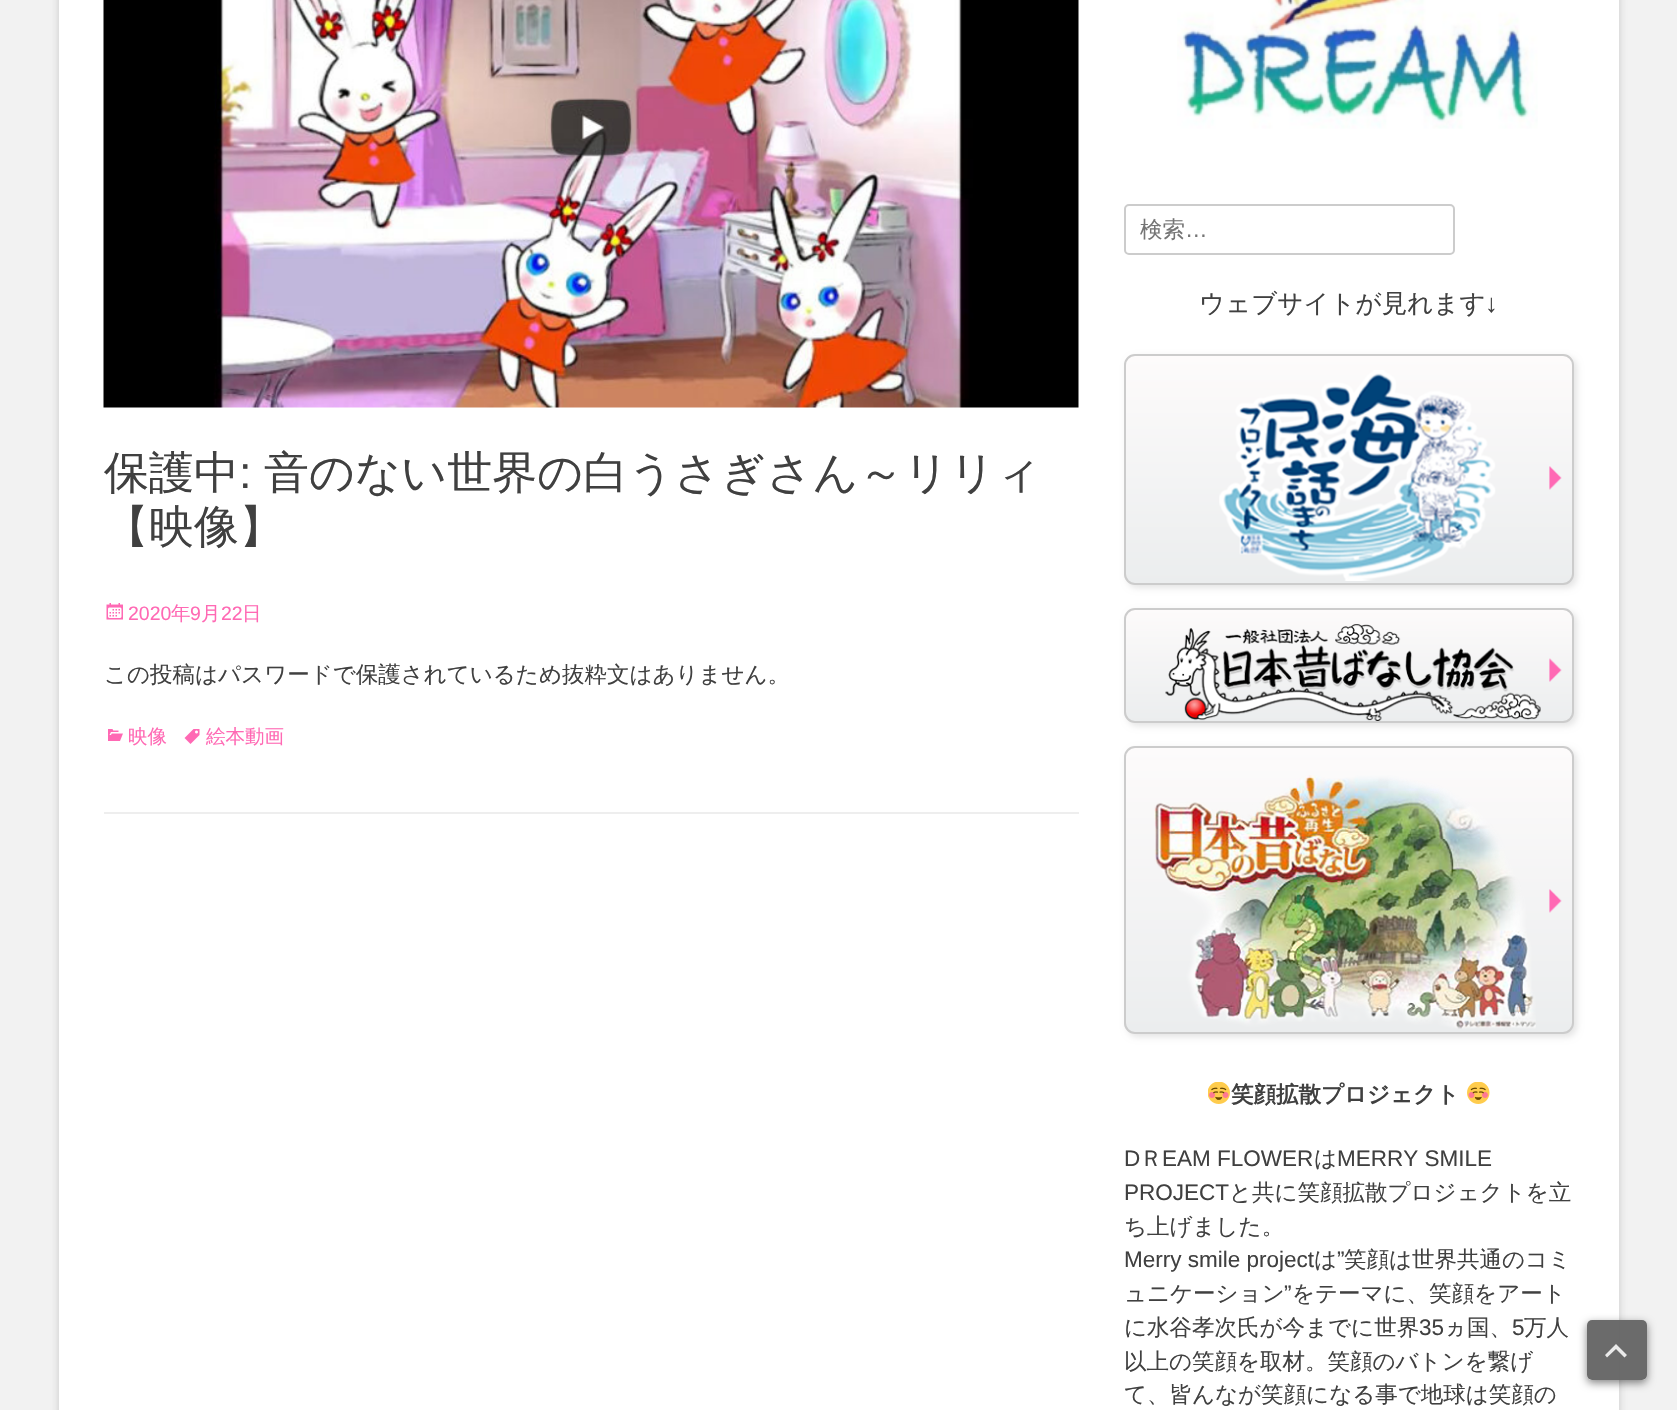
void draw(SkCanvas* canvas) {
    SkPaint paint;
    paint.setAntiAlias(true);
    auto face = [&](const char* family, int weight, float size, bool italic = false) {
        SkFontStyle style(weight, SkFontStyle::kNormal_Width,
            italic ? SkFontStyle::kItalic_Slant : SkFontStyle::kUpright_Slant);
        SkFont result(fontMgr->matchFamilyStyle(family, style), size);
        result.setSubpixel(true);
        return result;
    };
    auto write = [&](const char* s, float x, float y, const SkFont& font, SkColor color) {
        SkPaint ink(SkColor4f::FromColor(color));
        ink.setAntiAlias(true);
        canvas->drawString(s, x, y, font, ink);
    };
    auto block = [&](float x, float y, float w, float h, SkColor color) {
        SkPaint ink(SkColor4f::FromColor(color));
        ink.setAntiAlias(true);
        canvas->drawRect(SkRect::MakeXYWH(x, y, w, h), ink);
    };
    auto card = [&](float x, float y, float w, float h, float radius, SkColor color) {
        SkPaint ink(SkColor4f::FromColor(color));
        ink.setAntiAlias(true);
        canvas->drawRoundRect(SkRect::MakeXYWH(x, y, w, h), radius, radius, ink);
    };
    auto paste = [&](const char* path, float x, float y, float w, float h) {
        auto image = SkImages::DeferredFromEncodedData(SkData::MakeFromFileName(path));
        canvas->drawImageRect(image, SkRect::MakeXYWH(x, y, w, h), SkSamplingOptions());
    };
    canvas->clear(SkColorSetRGB(242, 242, 242));
    paint.setColor(SkColorSetARGB(77, 100, 100, 100));
    paint.setMaskFilter(SkMaskFilter::MakeBlur(kNormal_SkBlurStyle, 4.5f));
    canvas->drawRoundRect(SkRect::MakeXYWH(59, -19, 1560, 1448), 5, 5, paint);
    paint.setMaskFilter(nullptr);
    block(59, 0, 1560, 1410, SK_ColorWHITE);
    block(104, 812, 975, 2, SkColorSetRGB(238, 238, 238));
    paste("pic1.png", 103, 0, 976, 408);
    auto kFont1 = face("WenQuanYi Zen Hei", 500, 45);
    write("保護中", 104, 488, kFont1, SkColorSetRGB(64, 64, 64));
    auto kFont2 = face("Liberation Sans", 400, 45);
    write(":", 239, 488, kFont2, SkColorSetRGB(64, 64, 64));
    write("音のない世界の白うさぎさん～リリィ", 264, 488, kFont1, SkColorSetRGB(64, 64, 64));
    write("【映像】", 104, 542, kFont1, SkColorSetRGB(64, 64, 64));
    paste("pic2.png", 106, 603, 17, 17);
    auto kFont3 = face("Liberation Sans", 400, 19.5f);
    write("2020", 128, 620, kFont3, SkColorSetRGB(255, 105, 180));
    auto kFont4 = face("WenQuanYi Zen Hei", 500, 19.5f);
    write("年", 171, 620, kFont4, SkColorSetRGB(255, 105, 180));
    write("9", 190, 620, kFont3, SkColorSetRGB(255, 105, 180));
    write("月", 201, 620, kFont4, SkColorSetRGB(255, 105, 180));
    write("22", 221, 620, kFont3, SkColorSetRGB(255, 105, 180));
    write("日", 242, 620, kFont4, SkColorSetRGB(255, 105, 180));
    auto kFont5 = face("WenQuanYi Zen Hei", 500, 22.5f);
    write("この投稿はパスワードで保護されているため抜粋文はありません。", 104, 682, kFont5, SkColorSetRGB(64, 64, 64));
    paste("pic3.png", 108, 729, 15, 12);
    write("映像", 128, 743, kFont4, SkColorSetRGB(255, 105, 180));
    paste("pic4.png", 184, 729, 16, 15);
    write("絵本動画", 206, 743, kFont4, SkColorSetRGB(255, 105, 180));
    paste("pic5.png", 1177, 0, 361, 129);
    paint.setStyle(SkPaint::kStroke_Style);
    paint.setStrokeWidth(2);
    paint.setColor(SkColorSetRGB(204, 204, 204));
    canvas->drawRoundRect(SkRect::MakeXYWH(1125, 205, 329, 49), 4, 4, paint);
    write("検索", 1140, 237, kFont5, SkColorSetRGB(117, 117, 117));
    auto kFont6 = face("Liberation Sans", 400, 22.5f);
    write("…", 1185, 237, kFont6, SkColorSetRGB(117, 117, 117));
    auto kFont7 = face("WenQuanYi Zen Hei", 500, 25.5f);
    write("ウェブサイトが見れます", 1199, 312, kFont7, SkColorSetRGB(64, 64, 64));
    auto kFont8 = face("Liberation Sans", 400, 25.5f);
    write("↓", 1485, 312, kFont8, SkColorSetRGB(64, 64, 64));
    paint.setStyle(SkPaint::kFill_Style);
    paint.setColor(SkColorSetARGB(26, 0, 0, 0));
    paint.setMaskFilter(SkMaskFilter::MakeBlur(kNormal_SkBlurStyle, 3));
    canvas->drawRoundRect(SkRect::MakeXYWH(1127, 357, 450, 231), 11, 11, paint);
    paint.setMaskFilter(nullptr);
    canvas->save();
    canvas->clipPath(SkPathBuilder().moveTo(1135, 354).lineTo(1563, 354).cubicTo(1569, 354, 1574, 359, 1574, 365).lineTo(1574, 574).cubicTo(1574, 580, 1569, 585, 1563, 585).lineTo(1135, 585).cubicTo(1129, 585, 1124, 580, 1124, 574).lineTo(1124, 365).cubicTo(1124, 359, 1129, 354, 1135, 354).close().detach(), true);
    {
        const SkColor colors[] = {SkColorSetRGB(253, 251, 251), SkColorSetRGB(235, 237, 238)};
        const float stops[] = {0, 1};
        const SkPoint ends[] = {{1349, 356}, {1349, 584}};
        paint.setShader(SkGradientShader::MakeLinear(ends, colors, stops, 2, SkTileMode::kClamp));
        paint.setAlpha(255);
    }
    canvas->drawRect(SkRect::MakeXYWH(1124, 356, 450, 228), paint);
    canvas->restore();
    paint.setStyle(SkPaint::kStroke_Style);
    paint.setShader(nullptr);
    paint.setColor(SkColorSetRGB(204, 204, 204));
    canvas->drawRoundRect(SkRect::MakeXYWH(1125, 355, 448, 229), 10, 10, paint);
    paste("pic6.png", 1219, 370, 343, 211);
    paint.setStyle(SkPaint::kFill_Style);
    paint.setColor(SkColorSetARGB(26, 0, 0, 0));
    paint.setMaskFilter(SkMaskFilter::MakeBlur(kNormal_SkBlurStyle, 3));
    canvas->drawRoundRect(SkRect::MakeXYWH(1127, 611, 450, 115), 11, 11, paint);
    paint.setMaskFilter(nullptr);
    canvas->save();
    canvas->clipPath(SkPathBuilder().moveTo(1135, 608).lineTo(1563, 608).cubicTo(1569, 608, 1574, 613, 1574, 619).lineTo(1574, 712).cubicTo(1574, 718, 1569, 723, 1563, 723).lineTo(1135, 723).cubicTo(1129, 723, 1124, 718, 1124, 712).lineTo(1124, 619).cubicTo(1124, 613, 1129, 608, 1135, 608).close().detach(), true);
    {
        const SkColor colors[] = {SkColorSetRGB(253, 251, 251), SkColorSetRGB(235, 237, 238)};
        const float stops[] = {0, 1};
        const SkPoint ends[] = {{1349, 609}, {1349, 722}};
        paint.setShader(SkGradientShader::MakeLinear(ends, colors, stops, 2, SkTileMode::kClamp));
        paint.setAlpha(255);
    }
    canvas->drawRect(SkRect::MakeXYWH(1124, 609, 450, 113), paint);
    canvas->restore();
    paint.setStyle(SkPaint::kStroke_Style);
    paint.setShader(nullptr);
    paint.setColor(SkColorSetRGB(204, 204, 204));
    canvas->drawRoundRect(SkRect::MakeXYWH(1125, 609, 448, 113), 10, 10, paint);
    paste("pic7.png", 1165, 624, 397, 97);
    paint.setStyle(SkPaint::kFill_Style);
    paint.setColor(SkColorSetARGB(26, 0, 0, 0));
    paint.setMaskFilter(SkMaskFilter::MakeBlur(kNormal_SkBlurStyle, 3));
    canvas->drawRoundRect(SkRect::MakeXYWH(1127, 749, 450, 288), 11, 11, paint);
    paint.setMaskFilter(nullptr);
    canvas->save();
    canvas->clipPath(SkPathBuilder().moveTo(1135, 746).lineTo(1563, 746).cubicTo(1569, 746, 1574, 751, 1574, 757).lineTo(1574, 1023).cubicTo(1574, 1029, 1569, 1034, 1563, 1034).lineTo(1135, 1034).cubicTo(1129, 1034, 1124, 1029, 1124, 1023).lineTo(1124, 757).cubicTo(1124, 751, 1129, 746, 1135, 746).close().detach(), true);
    {
        const SkColor colors[] = {SkColorSetRGB(253, 251, 251), SkColorSetRGB(235, 237, 238)};
        const float stops[] = {0, 1};
        const SkPoint ends[] = {{1349, 747}, {1349, 1032}};
        paint.setShader(SkGradientShader::MakeLinear(ends, colors, stops, 2, SkTileMode::kClamp));
        paint.setAlpha(255);
    }
    canvas->drawRect(SkRect::MakeXYWH(1124, 747, 450, 285), paint);
    canvas->restore();
    paint.setStyle(SkPaint::kStroke_Style);
    paint.setShader(nullptr);
    paint.setColor(SkColorSetRGB(204, 204, 204));
    canvas->drawRoundRect(SkRect::MakeXYWH(1125, 747, 448, 286), 10, 10, paint);
    paste("pic8.png", 1154, 775, 408, 254);
    paste("pic9.png", 1208, 1082, 22, 22);
    auto kFont9 = face("WenQuanYi Zen Hei", 700, 22.5f);
    write("笑顔拡散プロジェクト", 1231, 1102, kFont9, SkColorSetRGB(64, 64, 64));
    paste("pic10.png", 1467, 1082, 23, 22);
    write("D", 1124, 1166, kFont6, SkColorSetRGB(64, 64, 64));
    write("Ｒ", 1140, 1166, kFont5, SkColorSetRGB(64, 64, 64));
    write("EAM FLOWER", 1162, 1166, kFont6, SkColorSetRGB(64, 64, 64));
    write("は", 1314, 1166, kFont5, SkColorSetRGB(64, 64, 64));
    write("MERRY SMILE", 1337, 1166, kFont6, SkColorSetRGB(64, 64, 64));
    write("PROJECT", 1124, 1200, kFont6, SkColorSetRGB(64, 64, 64));
    write("と共に笑顔拡散プロジェクトを立", 1229, 1200, kFont5, SkColorSetRGB(64, 64, 64));
    write("ち上げました。", 1124, 1234, kFont5, SkColorSetRGB(64, 64, 64));
    write("Merry smile project", 1124, 1267, kFont6, SkColorSetRGB(64, 64, 64));
    write("は", 1314, 1267, kFont5, SkColorSetRGB(64, 64, 64));
    write("”", 1337, 1267, kFont6, SkColorSetRGB(64, 64, 64));
    write("笑顔は世界共通のコミ", 1344, 1267, kFont5, SkColorSetRGB(64, 64, 64));
    write("ュニケーション", 1124, 1301, kFont5, SkColorSetRGB(64, 64, 64));
    write("”", 1284, 1301, kFont6, SkColorSetRGB(64, 64, 64));
    write("をテーマに、笑顔をアート", 1292, 1301, kFont5, SkColorSetRGB(64, 64, 64));
    write("に水谷孝次氏が今までに世界", 1124, 1335, kFont5, SkColorSetRGB(64, 64, 64));
    write("35", 1419, 1335, kFont6, SkColorSetRGB(64, 64, 64));
    write("ヵ国、", 1444, 1335, kFont5, SkColorSetRGB(64, 64, 64));
    write("5", 1512, 1335, kFont6, SkColorSetRGB(64, 64, 64));
    write("万人", 1524, 1335, kFont5, SkColorSetRGB(64, 64, 64));
    write("以上の笑顔を取材。笑顔のバトンを繋げ", 1124, 1369, kFont5, SkColorSetRGB(64, 64, 64));
    write("て、皆んなが笑顔になる事で地球は笑顔の", 1124, 1402, kFont5, SkColorSetRGB(64, 64, 64));
    canvas->save();
    canvas->clipPath(SkPathBuilder(SkPathFillType::kEvenOdd).moveTo(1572, 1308).lineTo(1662, 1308).lineTo(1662, 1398).lineTo(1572, 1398).close().moveTo(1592, 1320).lineTo(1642, 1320).cubicTo(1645, 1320, 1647, 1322, 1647, 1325).lineTo(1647, 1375).cubicTo(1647, 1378, 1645, 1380, 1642, 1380).lineTo(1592, 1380).cubicTo(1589, 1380, 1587, 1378, 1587, 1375).lineTo(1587, 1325).cubicTo(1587, 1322, 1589, 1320, 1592, 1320).close().detach(), true);
    paint.setStyle(SkPaint::kFill_Style);
    paint.setColor(SkColorSetARGB(122, 0, 0, 0));
    paint.setMaskFilter(SkMaskFilter::MakeBlur(kNormal_SkBlurStyle, 4.5f));
    canvas->drawRoundRect(SkRect::MakeXYWH(1587, 1323, 60, 60), 5, 5, paint);
    paint.setMaskFilter(nullptr);
    canvas->restore();
    card(1587, 1320, 60, 60, 5, SkColorSetARGB(247, 102, 102, 102));
    paint.setColor(SkColorSetRGB(234, 234, 234));
    canvas->drawPath(SkPathBuilder().moveTo(1624.5f, 1357.5f).lineTo(1616, 1349).lineTo(1607, 1357.5f).lineTo(1605, 1355).lineTo(1616, 1344).lineTo(1627, 1355).close().detach(), paint);
}
